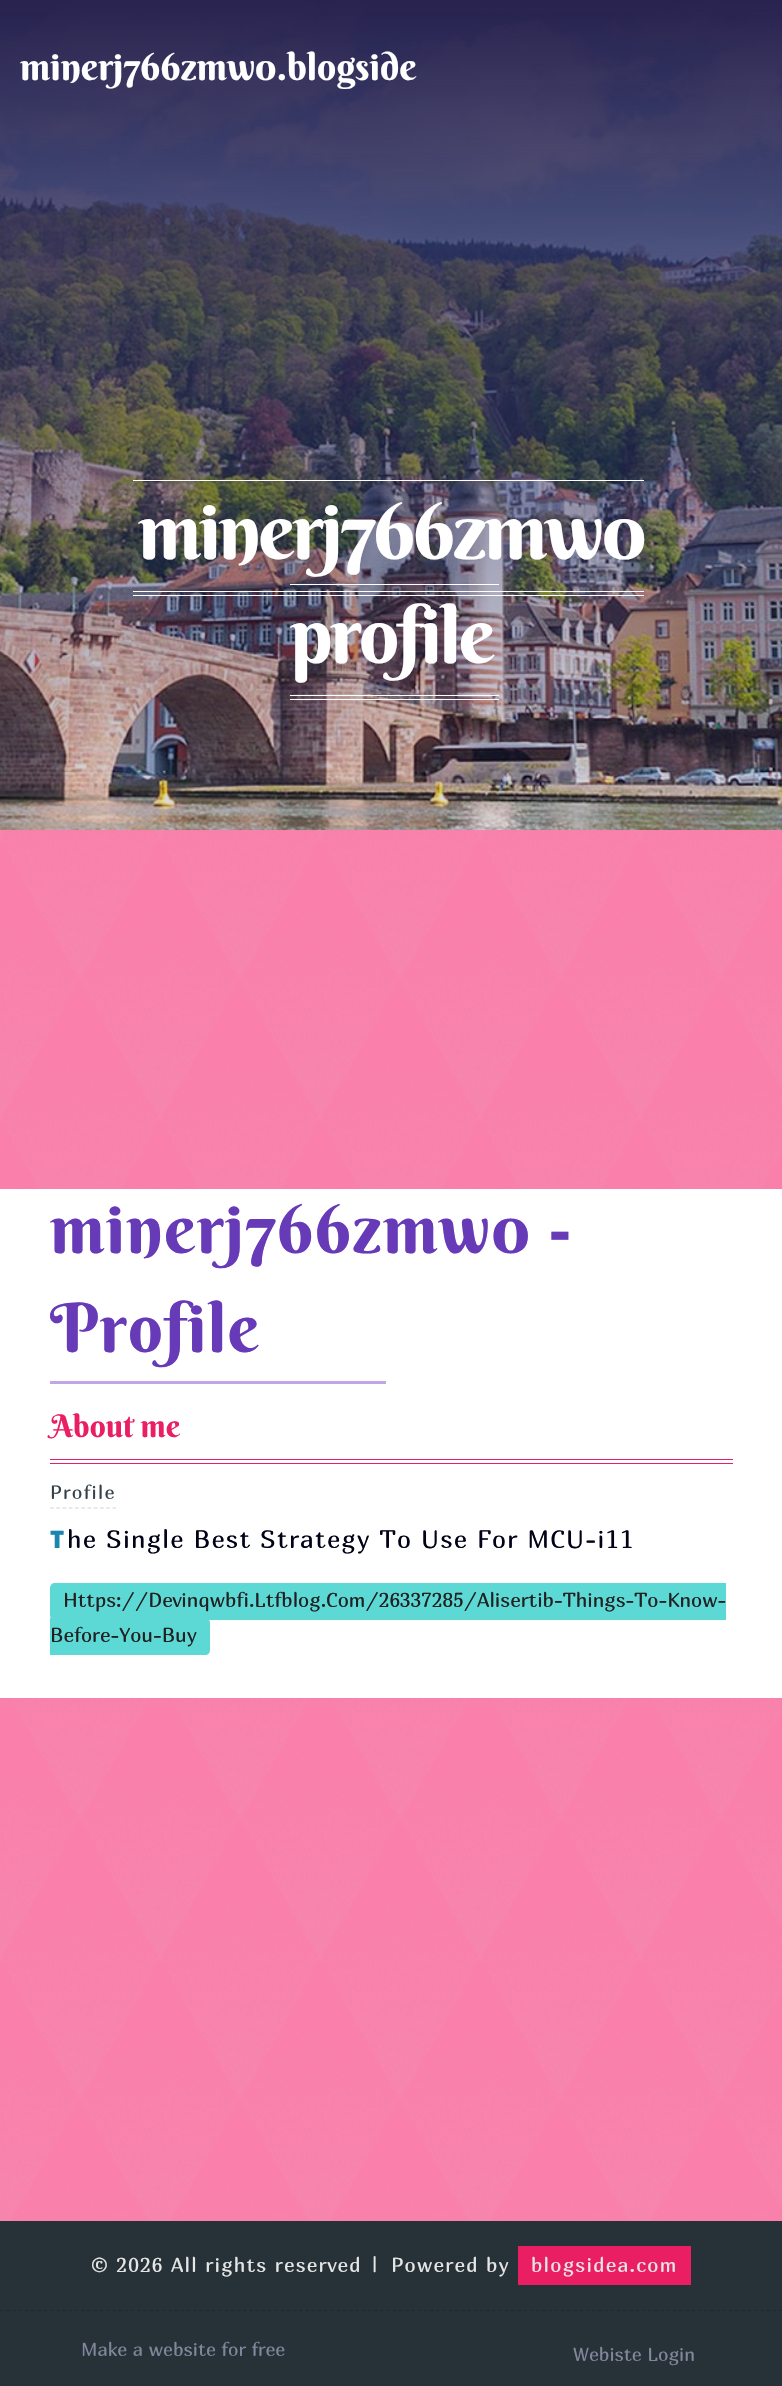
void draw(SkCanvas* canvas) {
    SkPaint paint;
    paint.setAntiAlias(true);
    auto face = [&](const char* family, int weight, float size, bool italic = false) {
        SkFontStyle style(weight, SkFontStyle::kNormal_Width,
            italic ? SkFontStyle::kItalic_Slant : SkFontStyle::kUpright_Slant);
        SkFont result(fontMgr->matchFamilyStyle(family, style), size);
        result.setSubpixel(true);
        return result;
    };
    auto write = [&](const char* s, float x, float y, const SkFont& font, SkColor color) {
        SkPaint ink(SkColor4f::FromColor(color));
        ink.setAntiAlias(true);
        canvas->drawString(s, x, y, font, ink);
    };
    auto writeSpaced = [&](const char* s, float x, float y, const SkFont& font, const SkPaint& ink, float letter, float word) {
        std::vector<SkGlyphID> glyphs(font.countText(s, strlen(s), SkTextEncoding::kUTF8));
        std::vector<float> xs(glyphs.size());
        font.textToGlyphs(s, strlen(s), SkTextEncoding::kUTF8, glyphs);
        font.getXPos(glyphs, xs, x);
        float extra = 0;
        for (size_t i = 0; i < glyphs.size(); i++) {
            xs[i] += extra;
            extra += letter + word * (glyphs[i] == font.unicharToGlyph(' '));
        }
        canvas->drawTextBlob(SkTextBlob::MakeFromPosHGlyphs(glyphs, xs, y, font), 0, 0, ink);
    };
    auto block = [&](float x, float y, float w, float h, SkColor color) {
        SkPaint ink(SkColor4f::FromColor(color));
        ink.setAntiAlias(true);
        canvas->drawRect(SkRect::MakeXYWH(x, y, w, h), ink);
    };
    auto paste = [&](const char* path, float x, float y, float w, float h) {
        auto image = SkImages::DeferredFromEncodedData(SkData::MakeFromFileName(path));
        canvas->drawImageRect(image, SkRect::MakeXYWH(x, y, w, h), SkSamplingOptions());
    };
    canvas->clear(SkColorSetRGB(250, 128, 171));
    paste("pic1.png", 0, 830, 782, 1391);
    paste("pic2.png", 0, 0, 782, 830);
    auto kFont1 = face("Berkshire Swash", 400, 37.5f);
    write("minerj766zmw0.blogside", 20, 80, kFont1, SK_ColorWHITE);
    auto kFont2 = face("Berkshire Swash", 400, 78.75f);
    paint.setColor(SK_ColorWHITE);
    writeSpaced("minerj766zmw0", 138, 559, kFont2, paint, -2.5f, 0);
    block(133, 480, 511, 1, SK_ColorWHITE);
    block(290, 584, 209, 1, SK_ColorWHITE);
    writeSpaced("profile", 290, 663, kFont2, paint, -2.5f, 0);
    block(133, 591, 511, 1, SK_ColorWHITE);
    block(133, 595, 511, 1, SK_ColorWHITE);
    block(290, 695, 209, 1, SK_ColorWHITE);
    block(290, 699, 209, 1, SK_ColorWHITE);
    block(0, 1189, 782, 509, SK_ColorWHITE);
    auto kFont3 = face("Berkshire Swash", 400, 68);
    paint.setColor(SkColorSetRGB(103, 58, 183));
    writeSpaced("minerj766zmw0 -", 50, 1253, kFont3, paint, 1.25f, 0);
    writeSpaced("Profile", 50, 1352, kFont3, paint, 1.25f, 0);
    block(50, 1381, 336, 3, SkColorSetRGB(192, 166, 230));
    block(50, 1459, 683, 1, SkColorSetRGB(234, 30, 99));
    block(50, 1463, 683, 1, SkColorSetRGB(234, 30, 99));
    auto kFont4 = face("Berkshire Swash", 400, 31.25f);
    write("About me", 50, 1437, kFont4, SkColorSetRGB(234, 30, 99));
    auto kFont5 = face("Marmelad", 400, 19);
    paint.setColor(SkColorSetRGB(51, 65, 74));
    writeSpaced("Profile", 50, 1499, kFont5, paint, 1.25f, 0);
    paint.setStyle(SkPaint::kStroke_Style);
    paint.setStrokeWidth(1.2f);
    paint.setColor(SkColorSetRGB(209, 214, 212));
    paint.setPathEffect(SkDashPathEffect::Make({{3.75f, 2.5f}}, 0));
    canvas->drawPath(SkPathBuilder().moveTo(50, 1508).lineTo(116, 1508).detach(), paint);
    paint.setPathEffect(nullptr);
    auto kFont6 = face("Noto Sans", 900, 24);
    paint.setStyle(SkPaint::kFill_Style);
    paint.setColor(SkColorSetRGB(26, 133, 174));
    writeSpaced("T", 50, 1548, kFont6, paint, 1.25f, 0);
    auto kFont7 = face("Marmelad", 400, 25);
    paint.setColor(SkColorSetRGB(1, 1, 24));
    writeSpaced("he Single Best Strategy To Use For MCU-i11", 67, 1548, kFont7, paint, 1.25f, 0);
    paint.setColor(SkColorSetRGB(92, 216, 213));
    canvas->drawPath(SkPathBuilder().moveTo(55, 1583).lineTo(726, 1583).lineTo(726, 1620).lineTo(55, 1620).cubicTo(52, 1620, 50, 1618, 50, 1615).lineTo(50, 1588).cubicTo(50, 1585, 52, 1583, 55, 1583).close().detach(), paint);
    auto kFont8 = face("Marmelad", 400, 20);
    write("Https://Devinqwbfi.Ltfblog.Com/26337285/Alisertib-Things-To-Know-", 63, 1607, kFont8, SkColorSetRGB(33, 33, 33));
    canvas->drawPath(SkPathBuilder().moveTo(50, 1618).lineTo(205, 1618).cubicTo(208, 1618, 210, 1620, 210, 1623).lineTo(210, 1650).cubicTo(210, 1653, 208, 1655, 205, 1655).lineTo(50, 1655).close().detach(), paint);
    write("Before-You-Buy", 50, 1642, kFont8, SkColorSetRGB(33, 33, 33));
    block(0, 2221, 782, 165, SkColorSetRGB(38, 50, 56));
    paint.setColor(SkColorSetRGB(230, 230, 230));
    writeSpaced("© 2026 All rights reserved", 91, 2272, kFont8, paint, 1.25f, 0);
    writeSpaced("|", 372, 2271, kFont8, paint, 1.25f, 0);
    writeSpaced("Powered by", 391, 2272, kFont8, paint, 1.25f, 0);
    block(518, 2246, 173, 39, SkColorSetRGB(234, 30, 99));
    writeSpaced("blogsidea.com", 531, 2272, kFont8, paint, 1.25f, 0);
    paint.setStyle(SkPaint::kStroke_Style);
    paint.setColor(SkColorSetRGB(30, 40, 45));
    paint.setPathEffect(SkDashPathEffect::Make({{3.75f, 2.48f}}, 0));
    canvas->drawPath(SkPathBuilder().moveTo(0, 2310.5f).lineTo(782.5f, 2310.5f).detach(), paint);
    paint.setPathEffect(nullptr);
    auto kFont9 = face("Marmelad", 400, 18.75f);
    write("Make a website for free", 81, 2356, kFont9, SkColorSetRGB(130, 134, 155));
    write("Webiste Login", 573, 2361, kFont9, SkColorSetRGB(130, 134, 155));
}
